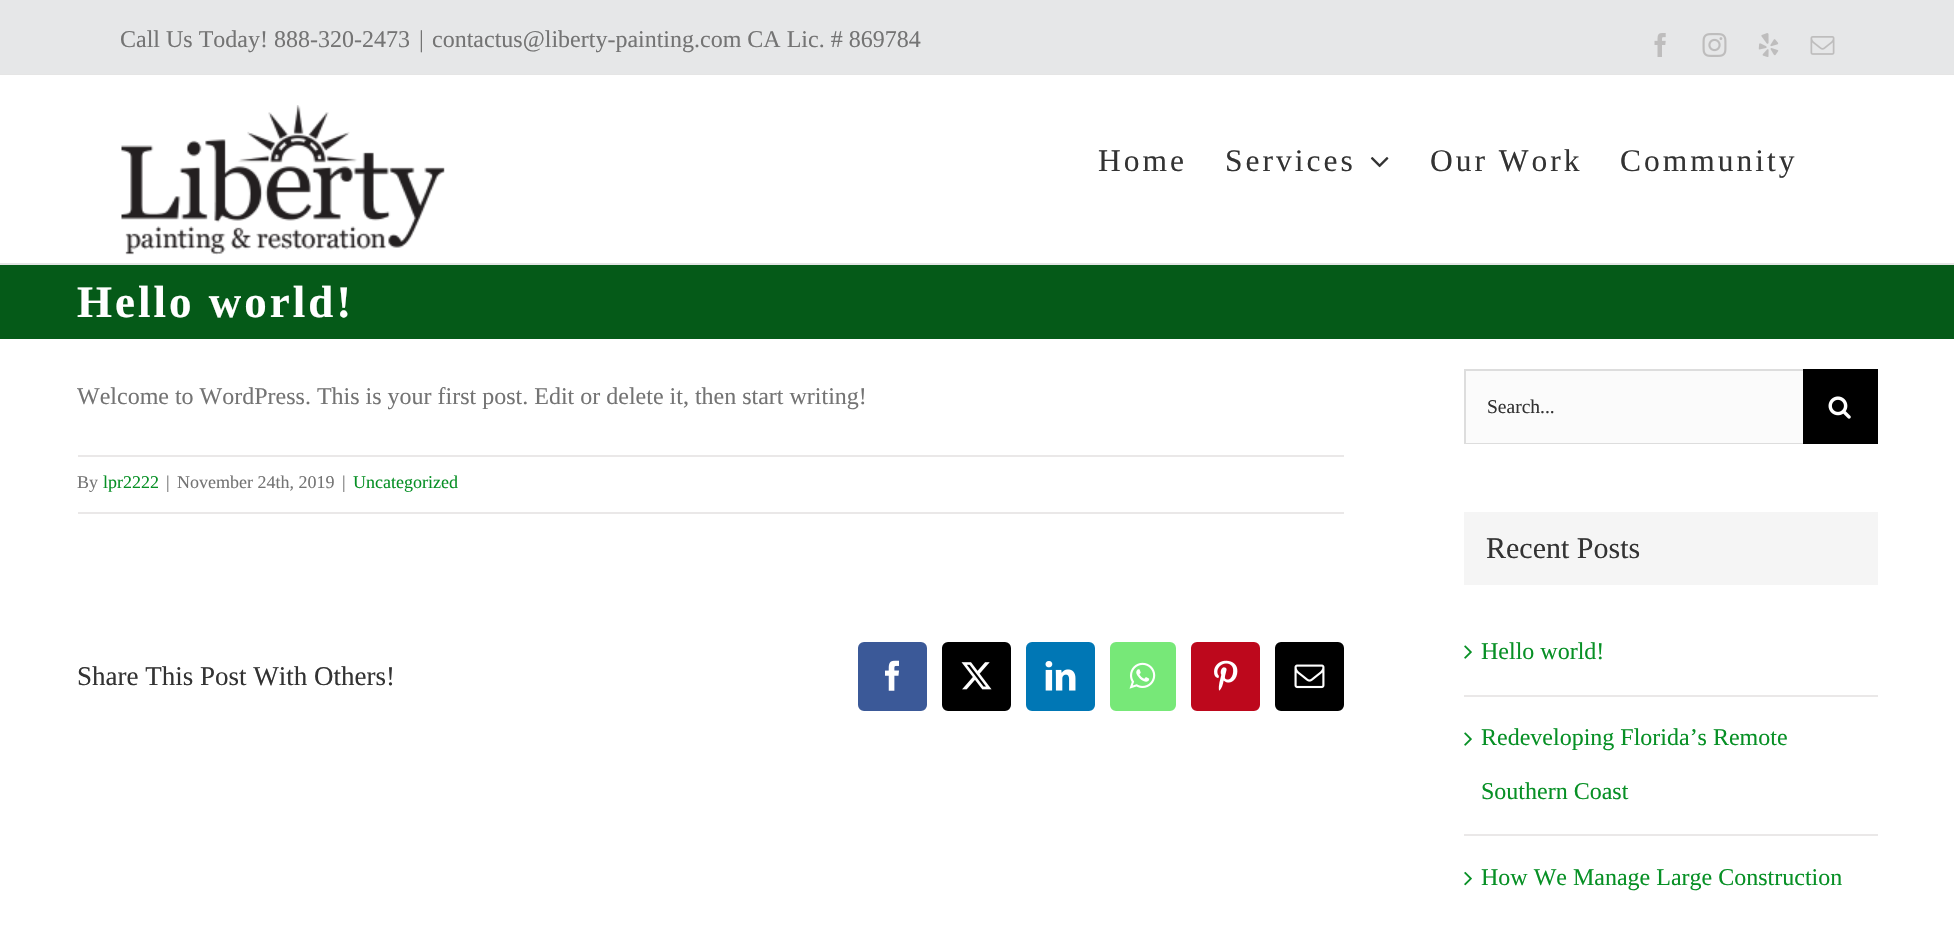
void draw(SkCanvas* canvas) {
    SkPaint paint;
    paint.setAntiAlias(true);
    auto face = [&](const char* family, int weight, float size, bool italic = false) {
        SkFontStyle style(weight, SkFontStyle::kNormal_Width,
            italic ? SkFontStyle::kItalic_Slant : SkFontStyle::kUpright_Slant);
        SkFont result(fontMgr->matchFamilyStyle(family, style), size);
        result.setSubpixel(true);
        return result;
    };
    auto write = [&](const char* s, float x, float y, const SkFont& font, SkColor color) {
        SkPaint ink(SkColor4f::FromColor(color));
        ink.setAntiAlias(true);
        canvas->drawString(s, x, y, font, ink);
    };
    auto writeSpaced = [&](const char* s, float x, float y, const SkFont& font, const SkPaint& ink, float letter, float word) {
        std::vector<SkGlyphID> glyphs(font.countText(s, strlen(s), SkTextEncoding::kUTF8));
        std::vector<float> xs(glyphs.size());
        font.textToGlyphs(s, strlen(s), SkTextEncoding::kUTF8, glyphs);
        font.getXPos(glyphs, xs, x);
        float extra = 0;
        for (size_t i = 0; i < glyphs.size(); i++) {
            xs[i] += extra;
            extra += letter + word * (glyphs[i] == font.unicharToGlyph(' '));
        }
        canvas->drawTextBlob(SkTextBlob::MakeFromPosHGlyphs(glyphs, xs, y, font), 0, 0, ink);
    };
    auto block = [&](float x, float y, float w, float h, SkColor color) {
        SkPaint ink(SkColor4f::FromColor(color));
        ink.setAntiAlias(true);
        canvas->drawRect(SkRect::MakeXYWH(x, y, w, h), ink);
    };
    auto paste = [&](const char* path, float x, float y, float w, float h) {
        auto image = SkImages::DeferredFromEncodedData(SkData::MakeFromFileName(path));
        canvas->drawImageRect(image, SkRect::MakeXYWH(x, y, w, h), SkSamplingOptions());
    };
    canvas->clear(SK_ColorWHITE);
    block(0, 0, 1954, 74, SkColorSetRGB(230, 231, 232));
    block(0, 74, 1954, 1, SkColorSetRGB(229, 229, 229));
    auto kFont1 = face("Liberation Serif", 400, 24);
    write("Call Us Today! 888-320-2473", 120, 47, kFont1, SkColorSetRGB(116, 116, 116));
    write("|", 419, 47, kFont1, SkColorSetRGB(116, 116, 116));
    write("contactus@liberty-painting.com CA Lic. # 869784", 432, 47, kFont1, SkColorSetRGB(116, 116, 116));
    paste("pic1.png", 1654, 33, 12, 24);
    paste("pic2.png", 1702, 33, 25, 24);
    paste("pic3.png", 1758, 33, 21, 24);
    paste("pic4.png", 1810, 36, 25, 19);
    block(0, 263, 1954, 2, SkColorSetRGB(229, 229, 229));
    paste("pic5.png", 121, 105, 324, 150);
    auto kFont2 = face("Liberation Serif", 400, 31.5f);
    paint.setColor(SkColorSetRGB(51, 51, 51));
    writeSpaced("Home", 1098, 171, kFont2, paint, 3, 0);
    writeSpaced("Services", 1225, 171, kFont2, paint, 3, 0);
    paste("pic6.png", 1370, 157, 19, 11);
    writeSpaced("Our Work", 1430, 171, kFont2, paint, 3, 0);
    writeSpaced("Community", 1620, 171, kFont2, paint, 3, 0);
    block(0, 265, 1954, 74, SkColorSetRGB(5, 90, 24));
    auto kFont3 = face("Liberation Serif", 700, 45);
    paint.setColor(SK_ColorWHITE);
    writeSpaced("Hello world!", 77, 317, kFont3, paint, 3, 0);
    write("Welcome to WordPress. This is your first post. Edit or delete it, then start writing!", 77, 404, kFont1, SkColorSetRGB(116, 116, 116));
    block(78, 455, 1266, 2, SkColorSetRGB(234, 232, 232));
    block(78, 512, 1266, 2, SkColorSetRGB(234, 232, 232));
    auto kFont4 = face("Liberation Serif", 400, 18);
    write("By", 77, 488, kFont4, SkColorSetRGB(116, 116, 116));
    write("lpr2222", 103, 488, kFont4, SkColorSetRGB(7, 144, 37));
    write("|", 166, 488, kFont4, SkColorSetRGB(116, 116, 116));
    write("November 24th, 2019", 177, 488, kFont4, SkColorSetRGB(116, 116, 116));
    write("|", 342, 488, kFont4, SkColorSetRGB(116, 116, 116));
    write("Uncategorized", 353, 488, kFont4, SkColorSetRGB(7, 144, 37));
    auto kFont5 = face("Liberation Serif", 400, 27);
    write("Share This Post With Others!", 77, 685, kFont5, SkColorSetRGB(51, 51, 51));
    paint.setColor(SkColorSetRGB(59, 89, 152));
    canvas->drawRoundRect(SkRect::MakeXYWH(859, 643, 67, 67), 5, 5, paint);
    paint.setStyle(SkPaint::kStroke_Style);
    paint.setStrokeWidth(2);
    canvas->drawRoundRect(SkRect::MakeXYWH(859, 643, 67, 67), 5, 5, paint);
    paste("pic7.png", 885, 660, 14, 31);
    paint.setStyle(SkPaint::kFill_Style);
    paint.setColor(SK_ColorBLACK);
    canvas->drawRoundRect(SkRect::MakeXYWH(943, 643, 67, 67), 5, 5, paint);
    paint.setStyle(SkPaint::kStroke_Style);
    canvas->drawRoundRect(SkRect::MakeXYWH(943, 643, 67, 67), 5, 5, paint);
    paste("pic8.png", 961, 662, 31, 28);
    paint.setStyle(SkPaint::kFill_Style);
    paint.setColor(SkColorSetRGB(0, 119, 181));
    canvas->drawRoundRect(SkRect::MakeXYWH(1027, 643, 67, 67), 5, 5, paint);
    paint.setStyle(SkPaint::kStroke_Style);
    canvas->drawRoundRect(SkRect::MakeXYWH(1027, 643, 67, 67), 5, 5, paint);
    paste("pic9.png", 1045, 661, 31, 30);
    paint.setStyle(SkPaint::kFill_Style);
    paint.setColor(SkColorSetRGB(119, 232, 120));
    canvas->drawRoundRect(SkRect::MakeXYWH(1111, 643, 64, 67), 5, 5, paint);
    paint.setStyle(SkPaint::kStroke_Style);
    canvas->drawRoundRect(SkRect::MakeXYWH(1111, 643, 64, 67), 5, 5, paint);
    paste("pic10.png", 1129, 662, 27, 27);
    paint.setStyle(SkPaint::kFill_Style);
    paint.setColor(SkColorSetRGB(189, 8, 28));
    canvas->drawRoundRect(SkRect::MakeXYWH(1192, 643, 67, 67), 5, 5, paint);
    paint.setStyle(SkPaint::kStroke_Style);
    canvas->drawRoundRect(SkRect::MakeXYWH(1192, 643, 67, 67), 5, 5, paint);
    paste("pic11.png", 1214, 660, 24, 31);
    paint.setStyle(SkPaint::kFill_Style);
    paint.setColor(SK_ColorBLACK);
    canvas->drawRoundRect(SkRect::MakeXYWH(1276, 643, 67, 67), 5, 5, paint);
    paint.setStyle(SkPaint::kStroke_Style);
    canvas->drawRoundRect(SkRect::MakeXYWH(1276, 643, 67, 67), 5, 5, paint);
    paste("pic12.png", 1294, 664, 31, 25);
    block(1466, 371, 337, 72, SkColorSetRGB(251, 251, 251));
    block(1464, 369, 339, 2, SkColorSetRGB(221, 221, 221));
    block(1464, 443, 339, 1, SkColorSetRGB(221, 221, 221));
    block(1464, 369, 2, 75, SkColorSetRGB(221, 221, 221));
    auto kFont6 = face("Liberation Serif", 400, 19.5f);
    write("Search...", 1487, 413, kFont6, SkColorSetRGB(51, 51, 51));
    block(1803, 369, 75, 75, SK_ColorBLACK);
    paste("pic13.png", 1828, 396, 23, 23);
    block(1464, 512, 414, 73, SkColorSetRGB(245, 245, 245));
    auto kFont7 = face("Liberation Serif", 400, 30);
    write("Recent Posts", 1486, 558, kFont7, SkColorSetRGB(51, 51, 51));
    block(1464, 695, 414, 2, SkColorSetRGB(234, 232, 232));
    paste("pic14.png", 1464, 645, 8, 14);
    write("Hello world!", 1481, 659, kFont1, SkColorSetRGB(7, 144, 37));
    block(1464, 834, 414, 2, SkColorSetRGB(234, 232, 232));
    paste("pic14.png", 1464, 732, 8, 14);
    write("Redeveloping Florida’s Remote", 1481, 745, kFont1, SkColorSetRGB(7, 144, 37));
    write("Southern Coast", 1481, 799, kFont1, SkColorSetRGB(7, 144, 37));
    paste("pic15.png", 1464, 871, 8, 15);
    write("How We Manage Large Construction", 1481, 885, kFont1, SkColorSetRGB(7, 144, 37));
}
